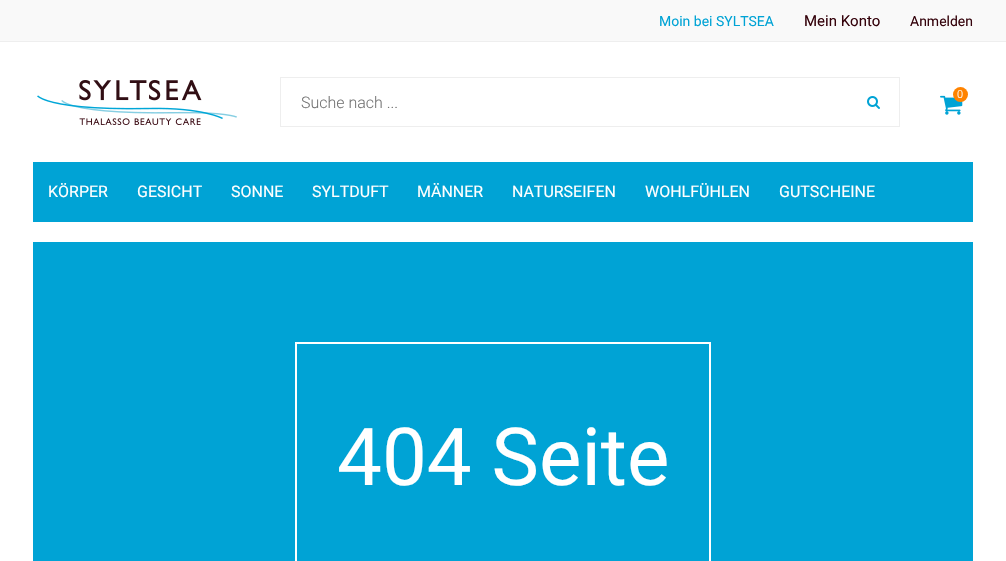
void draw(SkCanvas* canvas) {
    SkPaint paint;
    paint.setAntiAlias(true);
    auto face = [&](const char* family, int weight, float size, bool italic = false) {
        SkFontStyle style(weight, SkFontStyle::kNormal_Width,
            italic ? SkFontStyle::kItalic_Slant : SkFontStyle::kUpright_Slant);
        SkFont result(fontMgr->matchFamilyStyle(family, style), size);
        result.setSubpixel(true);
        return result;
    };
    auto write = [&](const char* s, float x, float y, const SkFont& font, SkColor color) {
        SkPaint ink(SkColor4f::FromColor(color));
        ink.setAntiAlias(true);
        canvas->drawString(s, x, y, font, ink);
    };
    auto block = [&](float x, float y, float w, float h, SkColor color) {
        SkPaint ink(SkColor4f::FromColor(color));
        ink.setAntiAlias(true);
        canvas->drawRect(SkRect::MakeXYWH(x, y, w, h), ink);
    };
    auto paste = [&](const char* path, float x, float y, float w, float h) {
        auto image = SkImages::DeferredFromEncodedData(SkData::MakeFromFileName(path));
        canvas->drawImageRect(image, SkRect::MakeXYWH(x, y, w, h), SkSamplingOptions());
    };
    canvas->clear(SK_ColorWHITE);
    block(0, 0, 1006, 41, SkColorSetRGB(249, 249, 249));
    block(0, 41, 1006, 1, SkColorSetRGB(238, 238, 238));
    auto kFont1 = face("Roboto", 400, 14);
    write("Moin bei SYLTSEA", 659, 26, kFont1, SkColorSetRGB(0, 163, 213));
    auto kFont2 = face("Roboto", 400, 15);
    write("Mein Konto", 804, 26, kFont2, SkColorSetRGB(53, 3, 12));
    write("Anmelden", 910, 26, kFont1, SkColorSetRGB(53, 3, 12));
    paste("pic1.png", 37, 80, 200, 45);
    paste("pic2.png", 940, 95, 23, 20);
    paint.setColor(SkColorSetRGB(255, 131, 0));
    canvas->drawCircle(960.5f, 94.5f, 7.5f, paint);
    auto kFont3 = face("Roboto", 300, 11);
    write("0", 957, 98, kFont3, SK_ColorWHITE);
    paint.setStyle(SkPaint::kStroke_Style);
    paint.setStrokeWidth(1);
    paint.setColor(SkColorSetRGB(238, 238, 238));
    canvas->drawRect(SkRect::MakeXYWH(280.5f, 77.5f, 619, 49), paint);
    auto kFont4 = face("Roboto", 300, 16);
    write("Suche nach ...", 301, 108, kFont4, SkColorSetRGB(117, 117, 117));
    paste("pic3.png", 867, 96, 13, 13);
    block(33, 162, 940, 60, SkColorSetRGB(0, 163, 213));
    auto kFont5 = face("Roboto", 400, 16);
    write("KÖRPER", 48, 197, kFont5, SK_ColorWHITE);
    write("GESICHT", 137, 197, kFont5, SK_ColorWHITE);
    write("SONNE", 231, 197, kFont5, SK_ColorWHITE);
    write("SYLTDUFT", 312, 197, kFont5, SK_ColorWHITE);
    write("MÄNNER", 417, 197, kFont5, SK_ColorWHITE);
    write("NATURSEIFEN", 512, 197, kFont5, SK_ColorWHITE);
    write("WOHLFÜHLEN", 645, 197, kFont5, SK_ColorWHITE);
    write("GUTSCHEINE", 779, 197, kFont5, SK_ColorWHITE);
    block(33, 242, 940, 319, SkColorSetRGB(0, 163, 213));
    paint.setStrokeWidth(2);
    paint.setColor(SK_ColorWHITE);
    canvas->drawRect(SkRect::MakeXYWH(296, 343, 414, 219), paint);
    auto kFont6 = face("Roboto", 400, 80);
    write("404 Seite", 337, 485, kFont6, SK_ColorWHITE);
}
